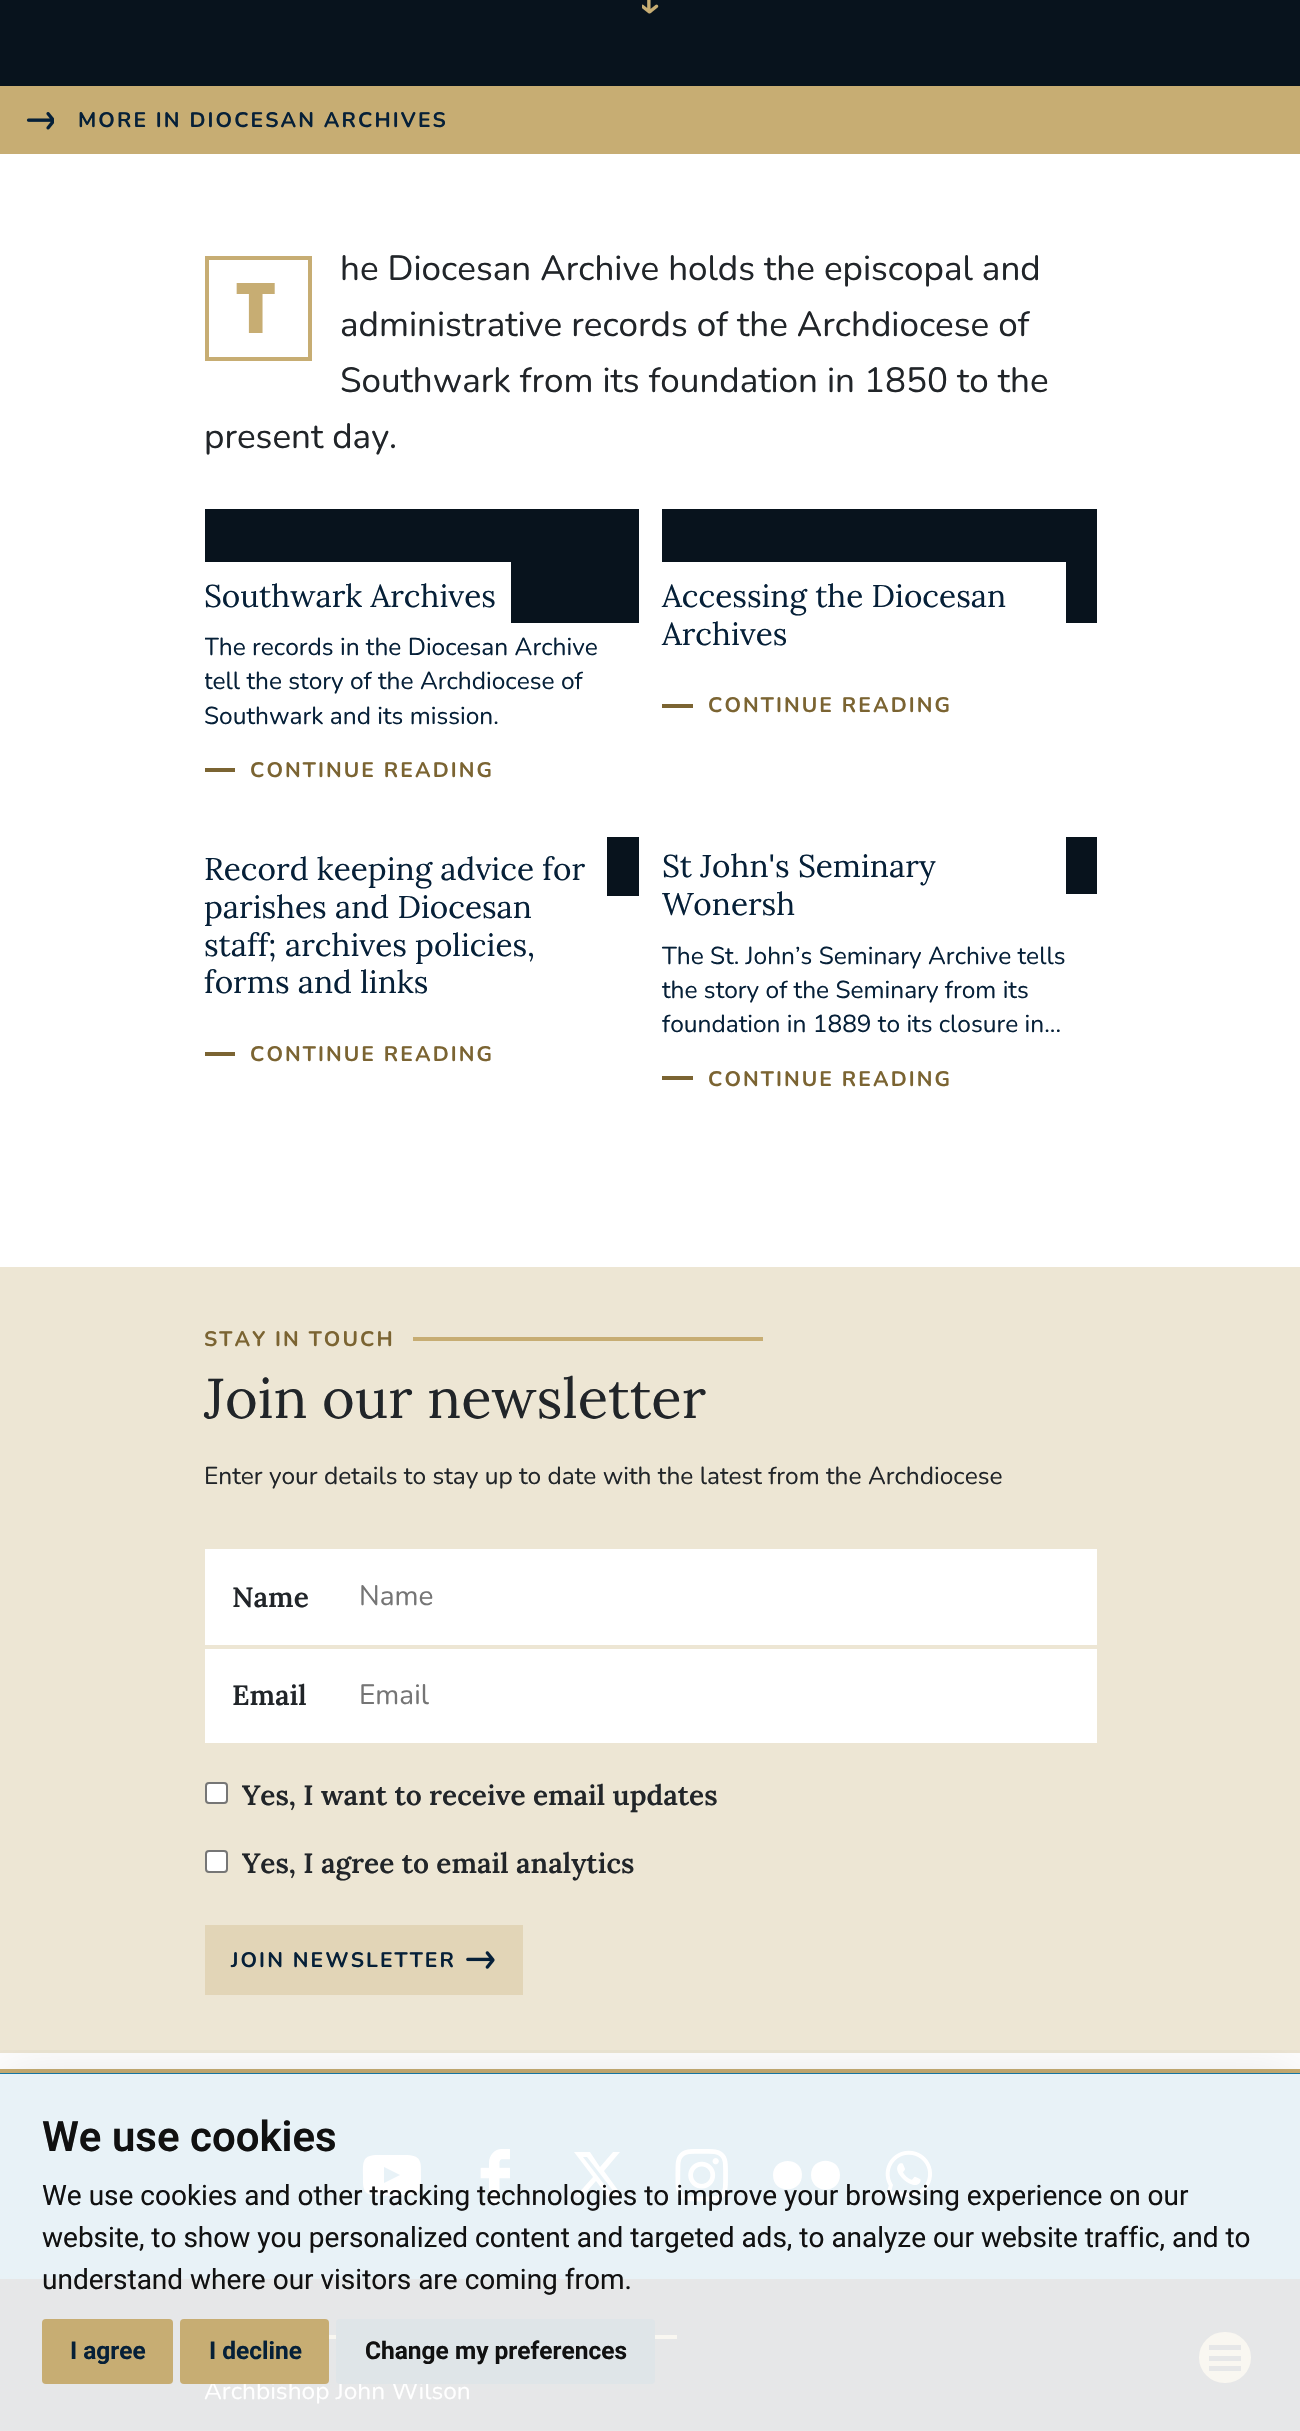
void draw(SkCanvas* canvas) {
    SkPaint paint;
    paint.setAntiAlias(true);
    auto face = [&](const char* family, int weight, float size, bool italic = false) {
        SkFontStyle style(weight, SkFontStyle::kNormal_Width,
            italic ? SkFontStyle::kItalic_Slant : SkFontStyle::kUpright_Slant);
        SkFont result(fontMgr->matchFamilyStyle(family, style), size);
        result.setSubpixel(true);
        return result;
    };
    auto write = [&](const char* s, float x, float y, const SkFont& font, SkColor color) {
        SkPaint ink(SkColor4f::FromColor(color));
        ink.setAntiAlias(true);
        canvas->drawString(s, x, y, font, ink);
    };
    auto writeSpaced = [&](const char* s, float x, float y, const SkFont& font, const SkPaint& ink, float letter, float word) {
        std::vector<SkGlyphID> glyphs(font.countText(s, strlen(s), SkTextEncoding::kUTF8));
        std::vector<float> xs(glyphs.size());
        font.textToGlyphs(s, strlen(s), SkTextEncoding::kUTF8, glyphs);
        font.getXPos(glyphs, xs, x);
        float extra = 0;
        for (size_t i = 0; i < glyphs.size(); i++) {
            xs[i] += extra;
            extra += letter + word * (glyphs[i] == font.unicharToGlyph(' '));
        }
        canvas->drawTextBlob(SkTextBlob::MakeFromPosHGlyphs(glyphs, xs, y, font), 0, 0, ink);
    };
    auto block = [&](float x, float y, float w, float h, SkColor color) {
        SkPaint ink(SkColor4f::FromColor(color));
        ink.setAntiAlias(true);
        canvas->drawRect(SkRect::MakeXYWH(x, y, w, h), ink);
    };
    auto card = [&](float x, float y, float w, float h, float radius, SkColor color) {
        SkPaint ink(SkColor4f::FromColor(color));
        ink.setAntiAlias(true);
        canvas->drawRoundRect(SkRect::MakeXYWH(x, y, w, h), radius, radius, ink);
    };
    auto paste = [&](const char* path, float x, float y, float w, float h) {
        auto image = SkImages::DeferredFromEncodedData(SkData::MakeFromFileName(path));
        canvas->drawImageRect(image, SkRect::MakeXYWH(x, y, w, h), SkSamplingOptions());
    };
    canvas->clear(SK_ColorWHITE);
    block(0, 0, 1300, 86, SkColorSetRGB(8, 19, 29));
    paste("pic1.png", 642, 0, 17, 14);
    block(0, 86, 1300, 68, SkColorSetRGB(199, 173, 115));
    paste("pic2.png", 26, 112, 28, 18);
    auto kFont1 = face("Nunito", 700, 21);
    paint.setColor(SkColorSetRGB(6, 32, 56));
    writeSpaced("MORE IN DIOCESAN ARCHIVES", 78, 127, kFont1, paint, 2.1f, 0);
    auto kFont2 = face("Nunito", 400, 35);
    write("he Diocesan Archive holds the episcopal and", 340, 280, kFont2, SkColorSetRGB(33, 37, 41));
    paint.setStyle(SkPaint::kStroke_Style);
    paint.setStrokeWidth(4);
    paint.setColor(SkColorSetRGB(199, 173, 115));
    canvas->drawRect(SkRect::MakeXYWH(207, 258, 103, 101), paint);
    auto kFont3 = face("Noto Sans", 900, 70);
    write("T", 235, 333, kFont3, SkColorSetRGB(199, 173, 115));
    write("administrative records of the Archdiocese of", 340, 336, kFont2, SkColorSetRGB(33, 37, 41));
    write("Southwark from its foundation in 1850 to the", 340, 392, kFont2, SkColorSetRGB(33, 37, 41));
    write("present day.", 204, 448, kFont2, SkColorSetRGB(33, 37, 41));
    block(205, 509, 434, 114, SkColorSetRGB(8, 19, 29));
    block(205, 562, 306, 61, SK_ColorWHITE);
    auto kFont4 = face("Lora", 400, 31.5f);
    write("Southwark Archives", 204, 607, kFont4, SkColorSetRGB(6, 32, 56));
    canvas->save();
    canvas->clipRect(SkRect::MakeXYWH(205, 630, 434, 103));
    auto kFont5 = face("Nunito", 400, 24.5f);
    write("The records in the Diocesan Archive", 204, 655, kFont5, SkColorSetRGB(6, 32, 56));
    write("tell the story of the Archdiocese of", 204, 689, kFont5, SkColorSetRGB(6, 32, 56));
    canvas->restore();
    write("Southwark and its mission.", 204, 724, kFont5, SkColorSetRGB(6, 32, 56));
    block(205, 768, 30, 4, SkColorSetRGB(123, 100, 50));
    paint.setStyle(SkPaint::kFill_Style);
    paint.setColor(SkColorSetRGB(123, 100, 50));
    writeSpaced("CONTINUE READING", 250, 777, kFont1, paint, 2.1f, 0);
    block(662, 509, 435, 114, SkColorSetRGB(8, 19, 29));
    block(662, 562, 404, 61, SK_ColorWHITE);
    write("Accessing the Diocesan", 662, 607, kFont4, SkColorSetRGB(6, 32, 56));
    write("Archives", 662, 645, kFont4, SkColorSetRGB(6, 32, 56));
    block(662, 704, 31, 4, SkColorSetRGB(123, 100, 50));
    writeSpaced("CONTINUE READING", 708, 712, kFont1, paint, 2.1f, 0);
    write("Record keeping advice for", 204, 880, kFont4, SkColorSetRGB(6, 32, 56));
    write("parishes and Diocesan", 204, 918, kFont4, SkColorSetRGB(6, 32, 56));
    write("staff; archives policies,", 204, 956, kFont4, SkColorSetRGB(6, 32, 56));
    write("forms and links", 204, 993, kFont4, SkColorSetRGB(6, 32, 56));
    block(205, 1052, 30, 4, SkColorSetRGB(123, 100, 50));
    writeSpaced("CONTINUE READING", 250, 1061, kFont1, paint, 2.1f, 0);
    block(607, 837, 32, 59, SkColorSetRGB(8, 19, 29));
    write("St John's Seminary", 662, 877, kFont4, SkColorSetRGB(6, 32, 56));
    write("Wonersh", 662, 915, kFont4, SkColorSetRGB(6, 32, 56));
    write("The St. John’s Seminary Archive tells", 662, 964, kFont5, SkColorSetRGB(6, 32, 56));
    write("the story of the Seminary from its", 662, 998, kFont5, SkColorSetRGB(6, 32, 56));
    write("foundation in 1889 to its closure in...", 662, 1032, kFont5, SkColorSetRGB(6, 32, 56));
    block(662, 1076, 31, 4, SkColorSetRGB(123, 100, 50));
    writeSpaced("CONTINUE READING", 708, 1086, kFont1, paint, 2.1f, 0);
    block(1066, 837, 31, 57, SkColorSetRGB(8, 19, 29));
    block(0, 1267, 1300, 786, SkColorSetRGB(237, 230, 212));
    writeSpaced("STAY IN TOUCH", 204, 1346, kFont1, paint, 2.1f, 0);
    block(413, 1337, 350, 4, SkColorSetRGB(199, 173, 115));
    auto kFont6 = face("Lora", 400, 56);
    write("Join our newsletter", 204, 1418, kFont6, SkColorSetRGB(33, 37, 41));
    write("Enter your details to stay up to date with the latest from the Archdiocese", 204, 1484, kFont5, SkColorSetRGB(33, 37, 41));
    block(205, 1549, 892, 96, SK_ColorWHITE);
    auto kFont7 = face("Lora", 600, 28);
    write("Name", 232, 1607, kFont7, SkColorSetRGB(33, 37, 41));
    auto kFont8 = face("Nunito", 400, 28);
    write("Name", 359, 1605, kFont8, SkColorSetRGB(117, 117, 117));
    block(205, 1649, 892, 94, SK_ColorWHITE);
    write("Email", 232, 1705, kFont7, SkColorSetRGB(33, 37, 41));
    write("Email", 359, 1704, kFont8, SkColorSetRGB(117, 117, 117));
    paint.setColor(SK_ColorWHITE);
    canvas->drawRoundRect(SkRect::MakeXYWH(206, 1783, 21, 20), 3, 3, paint);
    paint.setStyle(SkPaint::kStroke_Style);
    paint.setStrokeWidth(2);
    paint.setColor(SkColorSetRGB(118, 118, 118));
    canvas->drawRoundRect(SkRect::MakeXYWH(206, 1783, 21, 20), 3, 3, paint);
    write("Yes, I want to receive email updates", 242, 1805, kFont7, SkColorSetRGB(33, 37, 41));
    paint.setStyle(SkPaint::kFill_Style);
    paint.setColor(SK_ColorWHITE);
    canvas->drawRoundRect(SkRect::MakeXYWH(206, 1851, 21, 21), 3, 3, paint);
    paint.setStyle(SkPaint::kStroke_Style);
    paint.setColor(SkColorSetRGB(118, 118, 118));
    canvas->drawRoundRect(SkRect::MakeXYWH(206, 1851, 21, 21), 3, 3, paint);
    write("Yes, I agree to email analytics", 242, 1873, kFont7, SkColorSetRGB(33, 37, 41));
    block(205, 1925, 318, 70, SkColorSetRGB(226, 213, 183));
    paint.setStyle(SkPaint::kFill_Style);
    paint.setColor(SkColorSetRGB(6, 32, 56));
    writeSpaced("JOIN NEWSLETTER", 231, 1967, kFont1, paint, 2.1f, 0);
    paste("pic3.png", 466, 1951, 29, 18);
    block(0, 2279, 1300, 152, SkColorSetRGB(230, 231, 232));
    block(0, 2073, 1300, 1, SkColorSetRGB(22, 124, 171));
    block(0, 2074, 1300, 205, SkColorSetRGB(232, 242, 247));
    block(0, 2069, 1300, 4, SkColorSetRGB(199, 173, 115));
    paint.setColor(SK_ColorWHITE);
    canvas->drawPath(SkPathBuilder().moveTo(384, 2183).lineTo(384, 2167).lineTo(400, 2175).close().moveTo(392, 2196).lineTo(408, 2195).cubicTo(422, 2195, 421, 2187, 421, 2175).cubicTo(421, 2163, 422, 2156, 408, 2155).lineTo(375, 2155).cubicTo(362, 2156, 363, 2163, 363, 2175).cubicTo(363, 2187, 362, 2195, 375, 2195).close().detach(), paint);
    paste("pic4.png", 480, 2149, 30, 55);
    canvas->drawPath(SkPathBuilder().moveTo(613, 2152).lineTo(620, 2152).lineTo(604, 2171).lineTo(623, 2197).lineTo(608, 2197).lineTo(596, 2181).lineTo(582, 2197).lineTo(575, 2197).lineTo(593, 2177).lineTo(574, 2152).lineTo(590, 2152).lineTo(600, 2167).close().moveTo(610, 2192).lineTo(614, 2192).lineTo(587, 2157).lineTo(583, 2157).close().detach(), paint);
    paste("pic5.png", 675, 2149, 53, 53);
    canvas->drawPath(SkPathBuilder().moveTo(811, 2175).cubicTo(811, 2156, 840, 2156, 840, 2175).cubicTo(840, 2195, 811, 2194, 811, 2175).close().moveTo(773, 2175).cubicTo(773, 2157, 801, 2156, 802, 2174).cubicTo(803, 2194, 773, 2195, 773, 2175).close().detach(), paint);
    paste("pic6.png", 885, 2150, 47, 48);
    block(327, 2335, 350, 4, SkColorSetRGB(249, 247, 241));
    write("Archbishop John Wilson", 204, 2399, kFont5, SK_ColorWHITE);
    paint.setColor(SkColorSetRGB(249, 247, 241));
    canvas->drawRoundRect(SkRect::MakeXYWH(1190, 2323, 70, 69), 34.5f, 34.5f, paint);
    paint.setStyle(SkPaint::kStroke_Style);
    paint.setStrokeWidth(18);
    paint.setColor(SkColorSetRGB(230, 231, 232));
    canvas->drawRoundRect(SkRect::MakeXYWH(1190, 2323, 70, 69), 34.5f, 34.5f, paint);
    block(1209, 2345, 32, 5, SkColorSetRGB(230, 231, 232));
    block(1209, 2356, 32, 5, SkColorSetRGB(230, 231, 232));
    block(1209, 2366, 32, 5, SkColorSetRGB(230, 231, 232));
    canvas->save();
    canvas->clipRect(SkRect::MakeXYWH(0, 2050, 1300, 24));
    paint.setStyle(SkPaint::kFill_Style);
    paint.setColor(SkColorSetARGB(26, 0, 0, 0));
    paint.setMaskFilter(SkMaskFilter::MakeBlur(kNormal_SkBlurStyle, 28));
    canvas->drawRect(SkRect::MakeXYWH(0, 2074, 1300, 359), paint);
    paint.setMaskFilter(nullptr);
    canvas->restore();
    auto kFont9 = face("Roboto", 600, 42);
    write("We use cookies", 42, 2151, kFont9, SkColorSetRGB(17, 17, 17));
    auto kFont10 = face("Roboto", 400, 28);
    write("We use cookies and other tracking technologies to improve your browsing experience on our", 42, 2205, kFont10, SkColorSetRGB(17, 17, 17));
    write("website, to show you personalized content and targeted ads, to analyze our website traffic, and to", 42, 2247, kFont10, SkColorSetRGB(17, 17, 17));
    write("understand where our visitors are coming from.", 42, 2289, kFont10, SkColorSetRGB(17, 17, 17));
    card(42, 2319, 131, 65, 4, SkColorSetRGB(199, 173, 115));
    auto kFont11 = face("Roboto", 700, 24.5f);
    write("I agree", 70, 2359, kFont11, SkColorSetRGB(6, 32, 56));
    card(180, 2319, 149, 65, 4, SkColorSetRGB(199, 173, 115));
    write("I decline", 209, 2359, kFont11, SkColorSetRGB(6, 32, 56));
    card(336, 2319, 319, 65, 4, SkColorSetRGB(223, 229, 232));
    write("Change my preferences", 365, 2359, kFont11, SkColorSetRGB(17, 17, 17));
}
